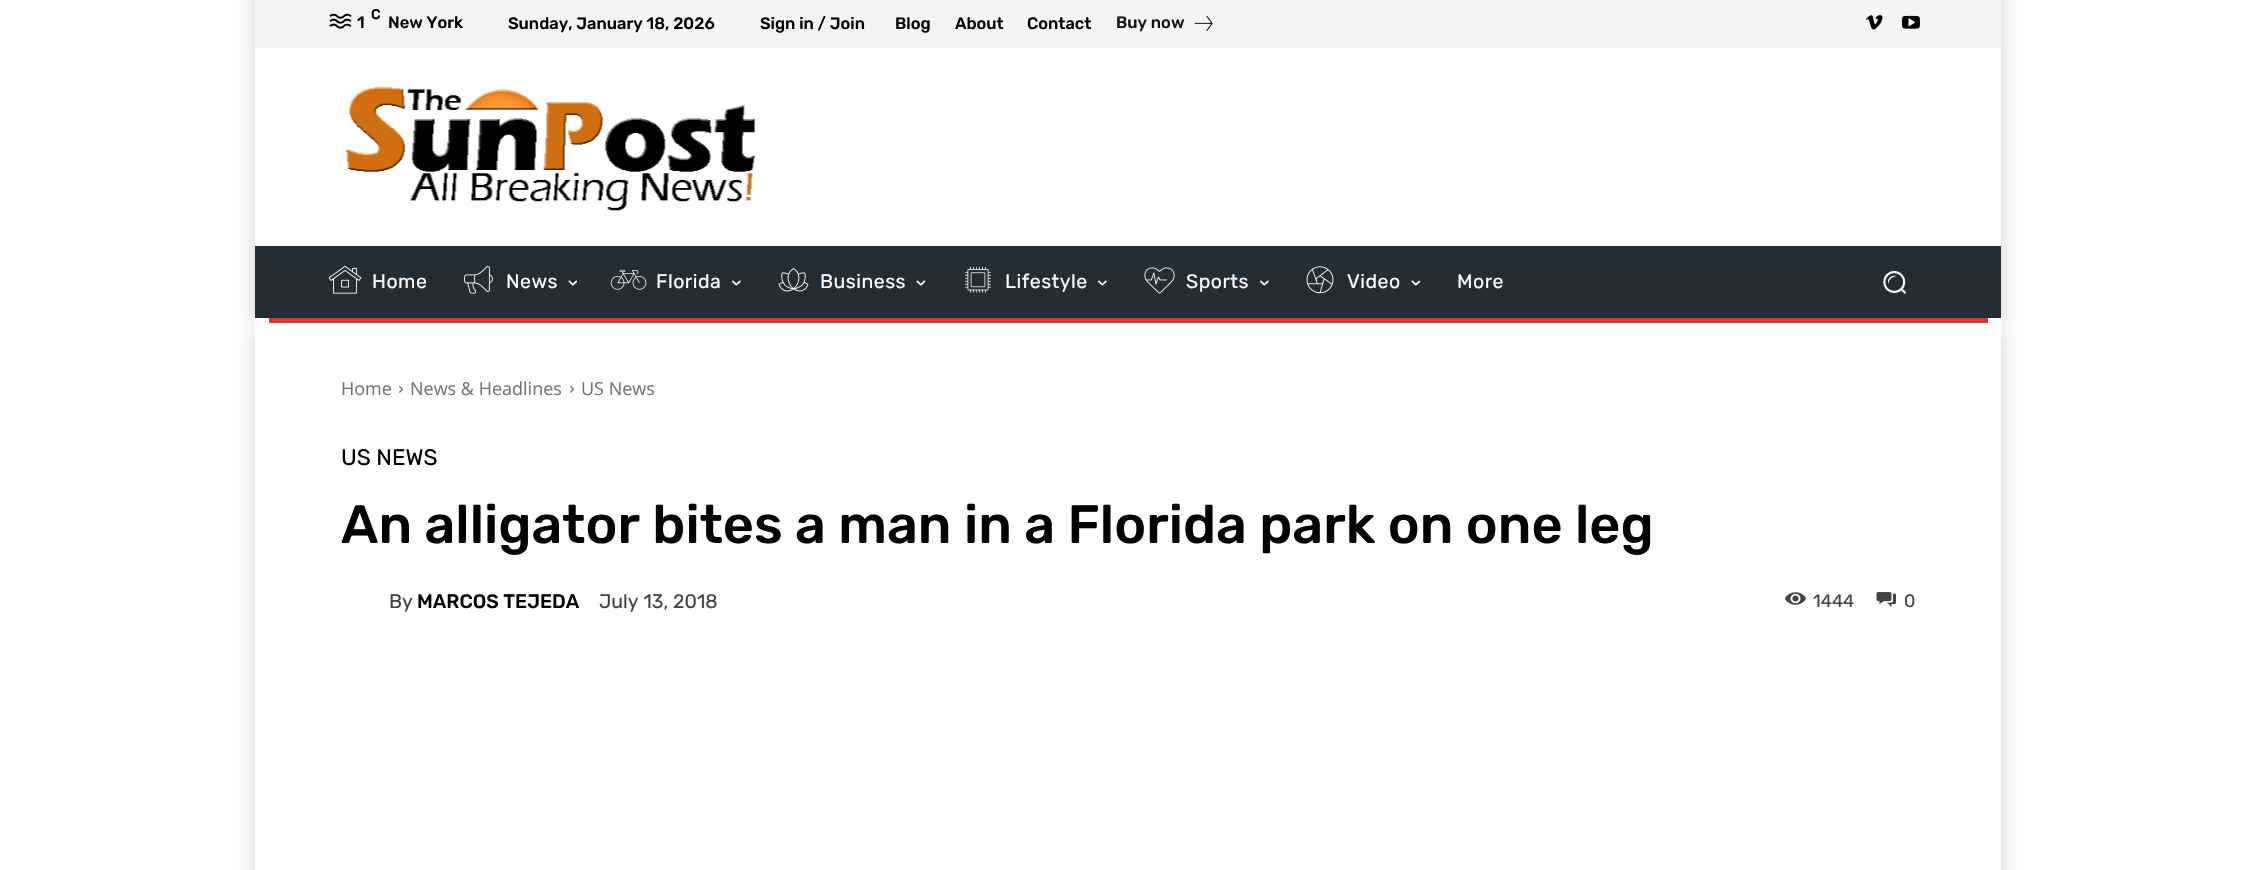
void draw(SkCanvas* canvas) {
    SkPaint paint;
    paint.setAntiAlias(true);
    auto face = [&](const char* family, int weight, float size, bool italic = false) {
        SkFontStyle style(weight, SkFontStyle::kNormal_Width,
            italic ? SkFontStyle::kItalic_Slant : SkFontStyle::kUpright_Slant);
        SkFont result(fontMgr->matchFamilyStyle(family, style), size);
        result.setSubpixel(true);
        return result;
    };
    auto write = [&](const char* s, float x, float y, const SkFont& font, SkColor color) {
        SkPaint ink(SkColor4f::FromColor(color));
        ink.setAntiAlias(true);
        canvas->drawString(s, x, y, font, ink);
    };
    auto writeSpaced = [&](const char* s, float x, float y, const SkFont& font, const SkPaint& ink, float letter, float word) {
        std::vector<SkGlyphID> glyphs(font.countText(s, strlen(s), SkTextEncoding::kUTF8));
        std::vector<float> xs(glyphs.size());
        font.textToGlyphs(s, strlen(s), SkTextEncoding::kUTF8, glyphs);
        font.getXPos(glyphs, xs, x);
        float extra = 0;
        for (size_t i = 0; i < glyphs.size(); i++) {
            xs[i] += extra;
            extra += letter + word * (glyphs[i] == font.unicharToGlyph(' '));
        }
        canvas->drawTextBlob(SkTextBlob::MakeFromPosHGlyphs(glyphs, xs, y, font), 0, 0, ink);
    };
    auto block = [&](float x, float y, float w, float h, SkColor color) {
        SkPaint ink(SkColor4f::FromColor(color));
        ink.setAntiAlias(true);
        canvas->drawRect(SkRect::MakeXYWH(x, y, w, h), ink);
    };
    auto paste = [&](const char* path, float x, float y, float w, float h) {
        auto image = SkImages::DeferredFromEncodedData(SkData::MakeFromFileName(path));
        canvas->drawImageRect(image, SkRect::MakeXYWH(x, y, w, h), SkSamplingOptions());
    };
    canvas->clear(SK_ColorWHITE);
    paint.setColor(SkColorSetARGB(31, 0, 0, 0));
    paint.setMaskFilter(SkMaskFilter::MakeBlur(kNormal_SkBlurStyle, 7.5f));
    canvas->drawRect(SkRect::MakeXYWH(251, -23, 1755, 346), paint);
    paint.setMaskFilter(nullptr);
    block(255, 0, 1746, 48, SkColorSetRGB(244, 244, 244));
    paste("pic1.png", 329, 13, 23, 16);
    auto kFont1 = face("Rubik", 500, 14);
    write("C", 371, 19, kFont1, SK_ColorBLACK);
    auto kFont2 = face("Rubik", 500, 16.5f);
    write("1", 357, 28, kFont2, SK_ColorBLACK);
    write("New York", 388, 28, kFont2, SK_ColorBLACK);
    write("Sunday, January 18, 2026", 508, 29, kFont2, SK_ColorBLACK);
    write("Sign in / Join", 760, 29, kFont2, SK_ColorBLACK);
    write("Blog", 895, 29, kFont2, SK_ColorBLACK);
    write("About", 955, 29, kFont2, SK_ColorBLACK);
    write("Contact", 1027, 29, kFont2, SK_ColorBLACK);
    write("Buy now", 1116, 28, kFont2, SkColorSetRGB(17, 17, 17));
    paste("pic2.png", 1194, 15, 19, 16);
    paste("pic3.png", 1866, 15, 17, 15);
    paste("pic4.png", 1902, 15, 18, 14);
    canvas->save();
    canvas->clipPath(SkPathBuilder(SkPathFillType::kEvenOdd).moveTo(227, 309).lineTo(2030, 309).lineTo(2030, 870).lineTo(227, 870).close().moveTo(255, 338).lineTo(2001, 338).lineTo(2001, 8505).lineTo(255, 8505).close().detach(), true);
    paint.setMaskFilter(SkMaskFilter::MakeBlur(kNormal_SkBlurStyle, 7.5f));
    canvas->drawRect(SkRect::MakeXYWH(251, 333, 1755, 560), paint);
    paint.setMaskFilter(nullptr);
    canvas->restore();
    block(255, 48, 1746, 290, SK_ColorWHITE);
    paste("pic5.png", 345, 87, 411, 124);
    block(255, 246, 1746, 72, SkColorSetRGB(35, 45, 53));
    paste("pic6.png", 328, 266, 34, 28);
    auto kFont3 = face("Rubik", 400, 19.5f);
    paint.setColor(SK_ColorWHITE);
    writeSpaced("Home", 372, 288, kFont3, paint, 0.5f, 0);
    paste("pic7.png", 464, 265, 29, 29);
    writeSpaced("News", 506, 288, kFont3, paint, 0.5f, 0);
    paste("pic8.png", 568, 280, 10, 6);
    paste("pic9.png", 610, 269, 37, 21);
    writeSpaced("Florida", 656, 288, kFont3, paint, 0.5f, 0);
    paste("pic10.png", 732, 280, 9, 6);
    paste("pic11.png", 778, 268, 31, 24);
    writeSpaced("Business", 820, 288, kFont3, paint, 0.5f, 0);
    paste("pic8.png", 916, 280, 10, 6);
    paste("pic12.png", 965, 266, 26, 27);
    writeSpaced("Lifestyle", 1005, 288, kFont3, paint, 0.5f, 0);
    paste("pic10.png", 1098, 280, 9, 6);
    paste("pic13.png", 1144, 267, 31, 27);
    writeSpaced("Sports", 1186, 288, kFont3, paint, 0.5f, 0);
    paste("pic10.png", 1260, 280, 9, 6);
    paste("pic14.png", 1306, 266, 28, 28);
    writeSpaced("Video", 1347, 288, kFont3, paint, 0.5f, 0);
    paste("pic8.png", 1411, 280, 10, 6);
    writeSpaced("More", 1457, 288, kFont3, paint, 0.5f, 0);
    paste("pic15.png", 1883, 271, 24, 23);
    block(269, 318, 1719, 5, SkColorSetRGB(221, 51, 51));
    auto kFont4 = face("Open Sans", 400, 18);
    write("Home", 341, 395, kFont4, SkColorSetRGB(116, 116, 116));
    paste("pic16.png", 399, 385, 4, 8);
    write("News & Headlines", 410, 395, kFont4, SkColorSetRGB(116, 116, 116));
    paste("pic16.png", 570, 385, 4, 8);
    write("US News", 581, 395, kFont4, SkColorSetRGB(116, 116, 116));
    auto kFont5 = face("Rubik", 400, 22.5f);
    write("US NEWS", 341, 465, kFont5, SK_ColorBLACK);
    auto kFont6 = face("Rubik", 500, 54);
    write("An alligator bites a man in a Florida park on one leg", 341, 543, kFont6, SK_ColorBLACK);
    write("By", 389, 608, kFont3, SkColorSetRGB(68, 68, 68));
    auto kFont7 = face("Rubik", 500, 19.5f);
    write("MARCOS TEJEDA", 417, 608, kFont7, SK_ColorBLACK);
    write("July 13, 2018", 599, 608, kFont3, SkColorSetRGB(68, 68, 68));
    paste("pic17.png", 1785, 592, 21, 13);
    auto kFont8 = face("Rubik", 400, 18);
    write("1444", 1813, 607, kFont8, SkColorSetRGB(68, 68, 68));
    paste("pic18.png", 1876, 592, 20, 15);
    write("0", 1904, 607, kFont8, SkColorSetRGB(68, 68, 68));
}
